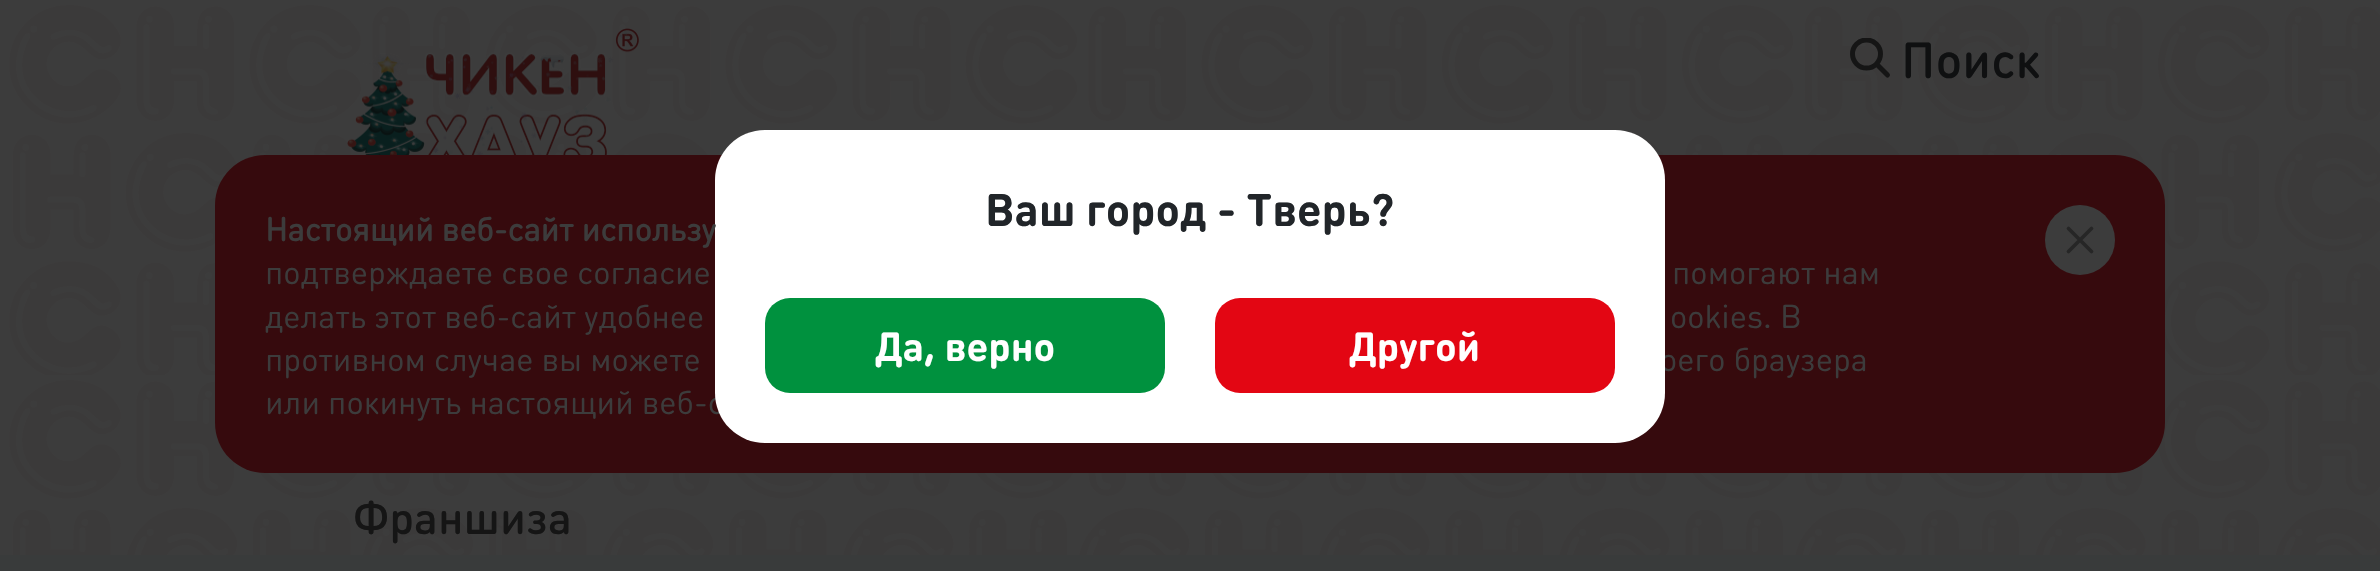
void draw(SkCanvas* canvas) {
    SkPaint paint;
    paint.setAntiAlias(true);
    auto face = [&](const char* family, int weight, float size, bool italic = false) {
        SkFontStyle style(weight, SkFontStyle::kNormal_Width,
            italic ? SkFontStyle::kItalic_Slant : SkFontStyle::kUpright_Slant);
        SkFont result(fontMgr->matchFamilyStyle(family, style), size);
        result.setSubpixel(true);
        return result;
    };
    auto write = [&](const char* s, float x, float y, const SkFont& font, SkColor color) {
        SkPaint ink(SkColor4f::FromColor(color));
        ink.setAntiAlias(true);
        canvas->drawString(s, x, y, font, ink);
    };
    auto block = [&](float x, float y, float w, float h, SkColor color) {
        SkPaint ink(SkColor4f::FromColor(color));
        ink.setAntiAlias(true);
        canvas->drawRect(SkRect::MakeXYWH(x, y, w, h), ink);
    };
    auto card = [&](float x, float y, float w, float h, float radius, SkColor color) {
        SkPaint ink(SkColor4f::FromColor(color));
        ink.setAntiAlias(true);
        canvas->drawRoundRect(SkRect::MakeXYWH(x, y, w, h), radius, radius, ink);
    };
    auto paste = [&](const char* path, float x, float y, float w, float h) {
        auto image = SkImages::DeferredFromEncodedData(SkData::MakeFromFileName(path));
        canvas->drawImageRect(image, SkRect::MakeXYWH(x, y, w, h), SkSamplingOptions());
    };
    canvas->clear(SkColorSetRGB(60, 60, 60));
    paste("pic1.png", 9, 5, 2371, 550);
    paste("pic2.png", 347, 28, 292, 127);
    canvas->save();
    canvas->clipRect(SkRect::MakeXYWH(1850, 38, 40, 40));
    paint.setStyle(SkPaint::kStroke_Style);
    paint.setStrokeWidth(5);
    paint.setColor(SkColorSetRGB(21, 21, 21));
    canvas->drawCircle(1866.5f, 54, 14, paint);
    canvas->restore();
    paint.setStrokeCap(SkPaint::kRound_Cap);
    canvas->drawPath(SkPathBuilder().moveTo(1878, 65.5f).lineTo(1887.5f, 75).detach(), paint);
    auto kFont1 = face("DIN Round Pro", 500, 50);
    write("Поиск", 1901, 78, kFont1, SkColorSetRGB(15, 16, 17));
    auto kFont2 = face("DIN Round Pro", 500, 45);
    write("Франшиза", 353, 534, kFont2, SkColorSetRGB(21, 21, 21));
    card(215, 155, 1950, 318, 50, SkColorSetRGB(54, 10, 13));
    auto kFont3 = face("DIN Round Pro", 400, 32.5f);
    write("оего браузера", 1660, 371, kFont3, SkColorSetRGB(60, 60, 60));
    write("или покинуть настоящий веб-с", 265, 414, kFont3, SkColorSetRGB(60, 60, 60));
    card(715, 130, 950, 313, 50, SK_ColorWHITE);
    auto kFont4 = face("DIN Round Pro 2", 700, 45);
    write("Ваш город - Тверь?", 985, 226, kFont4, SkColorSetRGB(33, 37, 41));
    card(765, 298, 400, 95, 25, SkColorSetRGB(0, 145, 62));
    auto kFont5 = face("DIN Round Pro 2", 700, 40);
    write("Да, верно", 875, 361, kFont5, SK_ColorWHITE);
    card(1215, 298, 400, 95, 25, SkColorSetRGB(227, 6, 19));
    write("Другой", 1349, 361, kFont5, SK_ColorWHITE);
    auto kFont6 = face("DIN Round Pro", 700, 32.5f);
    write("Настоящий веб-сайт использу", 265, 241, kFont6, SkColorSetRGB(60, 60, 60));
    write("подтверждаете свое согласие", 265, 284, kFont3, SkColorSetRGB(60, 60, 60));
    write("помогают нам", 1672, 284, kFont3, SkColorSetRGB(60, 60, 60));
    write("делать этот веб-сайт удобнее", 265, 328, kFont3, SkColorSetRGB(60, 60, 60));
    write("ookies. В", 1670, 328, kFont3, SkColorSetRGB(60, 60, 60));
    write("противном случае вы можете", 265, 371, kFont3, SkColorSetRGB(60, 60, 60));
    paint.setStyle(SkPaint::kFill_Style);
    paint.setColor(SkColorSetRGB(60, 60, 60));
    canvas->drawCircle(2080, 240, 35, paint);
    paint.setStyle(SkPaint::kStroke_Style);
    paint.setStrokeWidth(3.8f);
    paint.setColor(SkColorSetRGB(38, 38, 38));
    canvas->drawPath(SkPathBuilder().moveTo(2068.5f, 228.5f).lineTo(2091.5f, 251.5f).moveTo(2091.5f, 228.5f).lineTo(2068.5f, 251.5f).detach(), paint);
    block(0, 555, 2380, 16, SkColorSetRGB(57, 59, 59));
}
